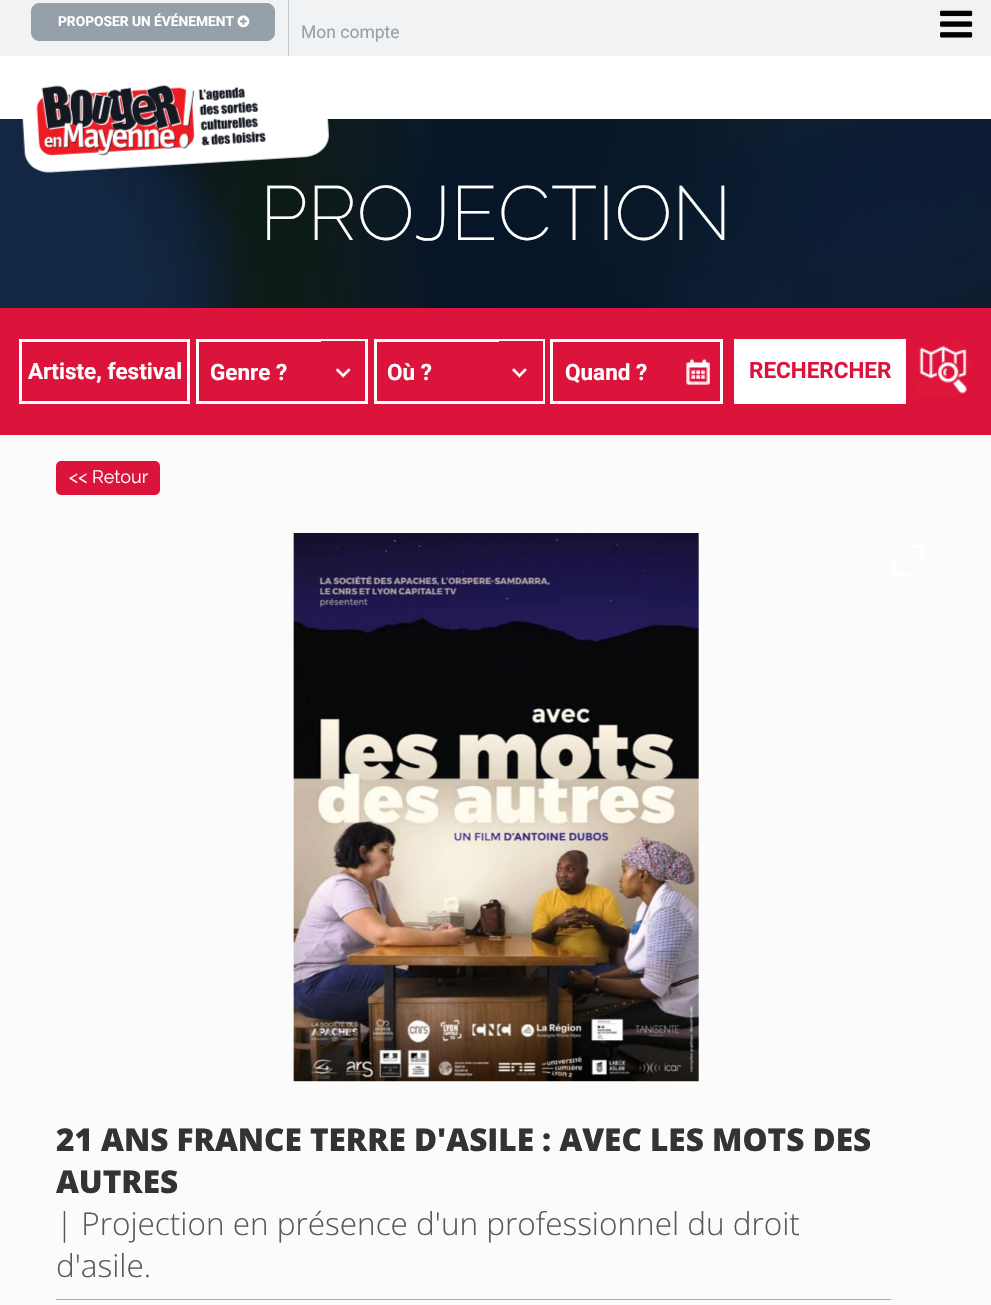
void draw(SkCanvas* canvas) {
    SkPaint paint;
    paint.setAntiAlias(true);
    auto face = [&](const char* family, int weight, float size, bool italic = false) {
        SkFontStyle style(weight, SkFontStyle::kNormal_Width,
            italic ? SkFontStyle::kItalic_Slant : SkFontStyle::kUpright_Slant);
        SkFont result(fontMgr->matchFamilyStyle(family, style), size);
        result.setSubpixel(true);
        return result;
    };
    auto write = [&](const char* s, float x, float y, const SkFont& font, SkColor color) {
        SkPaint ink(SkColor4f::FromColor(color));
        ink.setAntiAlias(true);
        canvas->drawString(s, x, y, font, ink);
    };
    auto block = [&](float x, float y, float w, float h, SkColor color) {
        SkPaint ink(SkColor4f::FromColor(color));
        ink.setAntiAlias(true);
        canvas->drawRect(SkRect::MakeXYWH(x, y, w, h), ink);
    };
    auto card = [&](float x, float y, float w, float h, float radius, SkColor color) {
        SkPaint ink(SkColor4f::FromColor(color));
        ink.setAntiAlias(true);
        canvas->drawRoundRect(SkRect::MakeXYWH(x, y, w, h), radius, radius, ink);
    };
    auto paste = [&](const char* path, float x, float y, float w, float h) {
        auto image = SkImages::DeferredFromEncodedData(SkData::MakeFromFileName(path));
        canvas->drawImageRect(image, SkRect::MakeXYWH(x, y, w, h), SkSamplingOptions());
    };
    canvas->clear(SkColorSetRGB(251, 251, 251));
    block(0, 56, 991, 63, SK_ColorWHITE);
    block(0, 0, 991, 56, SkColorSetRGB(241, 242, 243));
    paste("pic1.png", 940, 10, 33, 28);
    paste("pic4.png", 0, 119, 991, 189);
    paste("pic2.png", 22, 85, 307, 88);
    paint.setColor(SkColorSetRGB(150, 160, 170));
    canvas->drawRoundRect(SkRect::MakeXYWH(31.5f, 3.5f, 243, 37), 7.5f, 7.5f, paint);
    paint.setStyle(SkPaint::kStroke_Style);
    paint.setStrokeWidth(1);
    canvas->drawRoundRect(SkRect::MakeXYWH(31.5f, 3.5f, 243, 37), 7.5f, 7.5f, paint);
    auto kFont1 = face("Roboto", 700, 13.75f);
    write("PROPOSER UN ÉVÉNEMENT", 58, 26, kFont1, SK_ColorWHITE);
    paste("pic3.png", 237, 15, 13, 13);
    block(288, 0, 1, 56, SkColorSetRGB(195, 201, 206));
    auto kFont2 = face("Roboto", 400, 17.5f);
    write("Mon compte", 301, 38, kFont2, SkColorSetRGB(150, 160, 170));
    auto kFont3 = face("Raleway", 200, 76.5f);
    write("PROJECTION", 260, 240, kFont3, SK_ColorWHITE);
    block(0, 308, 991, 127, SkColorSetRGB(220, 20, 59));
    paint.setStrokeWidth(3);
    paint.setColor(SK_ColorWHITE);
    canvas->drawRect(SkRect::MakeXYWH(20.5f, 340.5f, 168, 62), paint);
    auto kFont4 = face("Roboto", 700, 22.5f);
    write("Artiste, festival", 28, 379, kFont4, SK_ColorWHITE);
    canvas->drawRect(SkRect::MakeXYWH(197.5f, 340.5f, 169, 62), paint);
    write("Genre ?", 210, 380, kFont4, SK_ColorWHITE);
    block(321, 341, 44, 1, SkColorSetRGB(220, 20, 59));
    paste("pic5.png", 334, 368, 20, 11);
    canvas->drawRect(SkRect::MakeXYWH(375.5f, 340.5f, 168, 62), paint);
    write("Où ?", 387, 380, kFont4, SK_ColorWHITE);
    block(499, 341, 44, 60, SkColorSetRGB(220, 20, 59));
    paste("pic6.png", 510, 368, 20, 11);
    paste("pic7.png", 686, 358, 24, 27);
    canvas->drawRect(SkRect::MakeXYWH(551.5f, 340.5f, 170, 62), paint);
    write("Quand ?", 565, 380, kFont4, SK_ColorWHITE);
    block(734, 339, 172, 65, SK_ColorWHITE);
    write("RECHERCHER", 749, 378, kFont4, SkColorSetRGB(220, 20, 59));
    paste("pic8.png", 915, 341, 57, 55);
    card(56, 461, 104, 34, 5, SkColorSetRGB(220, 20, 59));
    auto kFont5 = face("Raleway", 400, 18);
    write("<< Retour", 69, 483, kFont5, SK_ColorWHITE);
    paste("pic9.png", 293, 533, 406, 549);
    block(908, 545, 15, 3, SK_ColorWHITE);
    block(920, 545, 3, 15, SK_ColorWHITE);
    block(893, 573, 15, 3, SK_ColorWHITE);
    block(893, 560, 3, 15, SK_ColorWHITE);
    block(56, 1299, 835, 1, SkColorSetRGB(170, 170, 170));
    auto kFont6 = face("Open Sans", 800, 31.5f);
    write("21 ANS FRANCE TERRE D'ASILE : AVEC LES MOTS DES", 56, 1151, kFont6, SkColorSetRGB(51, 51, 51));
    write("AUTRES", 56, 1193, kFont6, SkColorSetRGB(51, 51, 51));
    auto kFont7 = face("Open Sans", 300, 31.5f);
    write("| Projection en présence d'un professionnel du droit", 56, 1235, kFont7, SkColorSetRGB(85, 90, 93));
    write("d'asile.", 56, 1277, kFont7, SkColorSetRGB(85, 90, 93));
}
